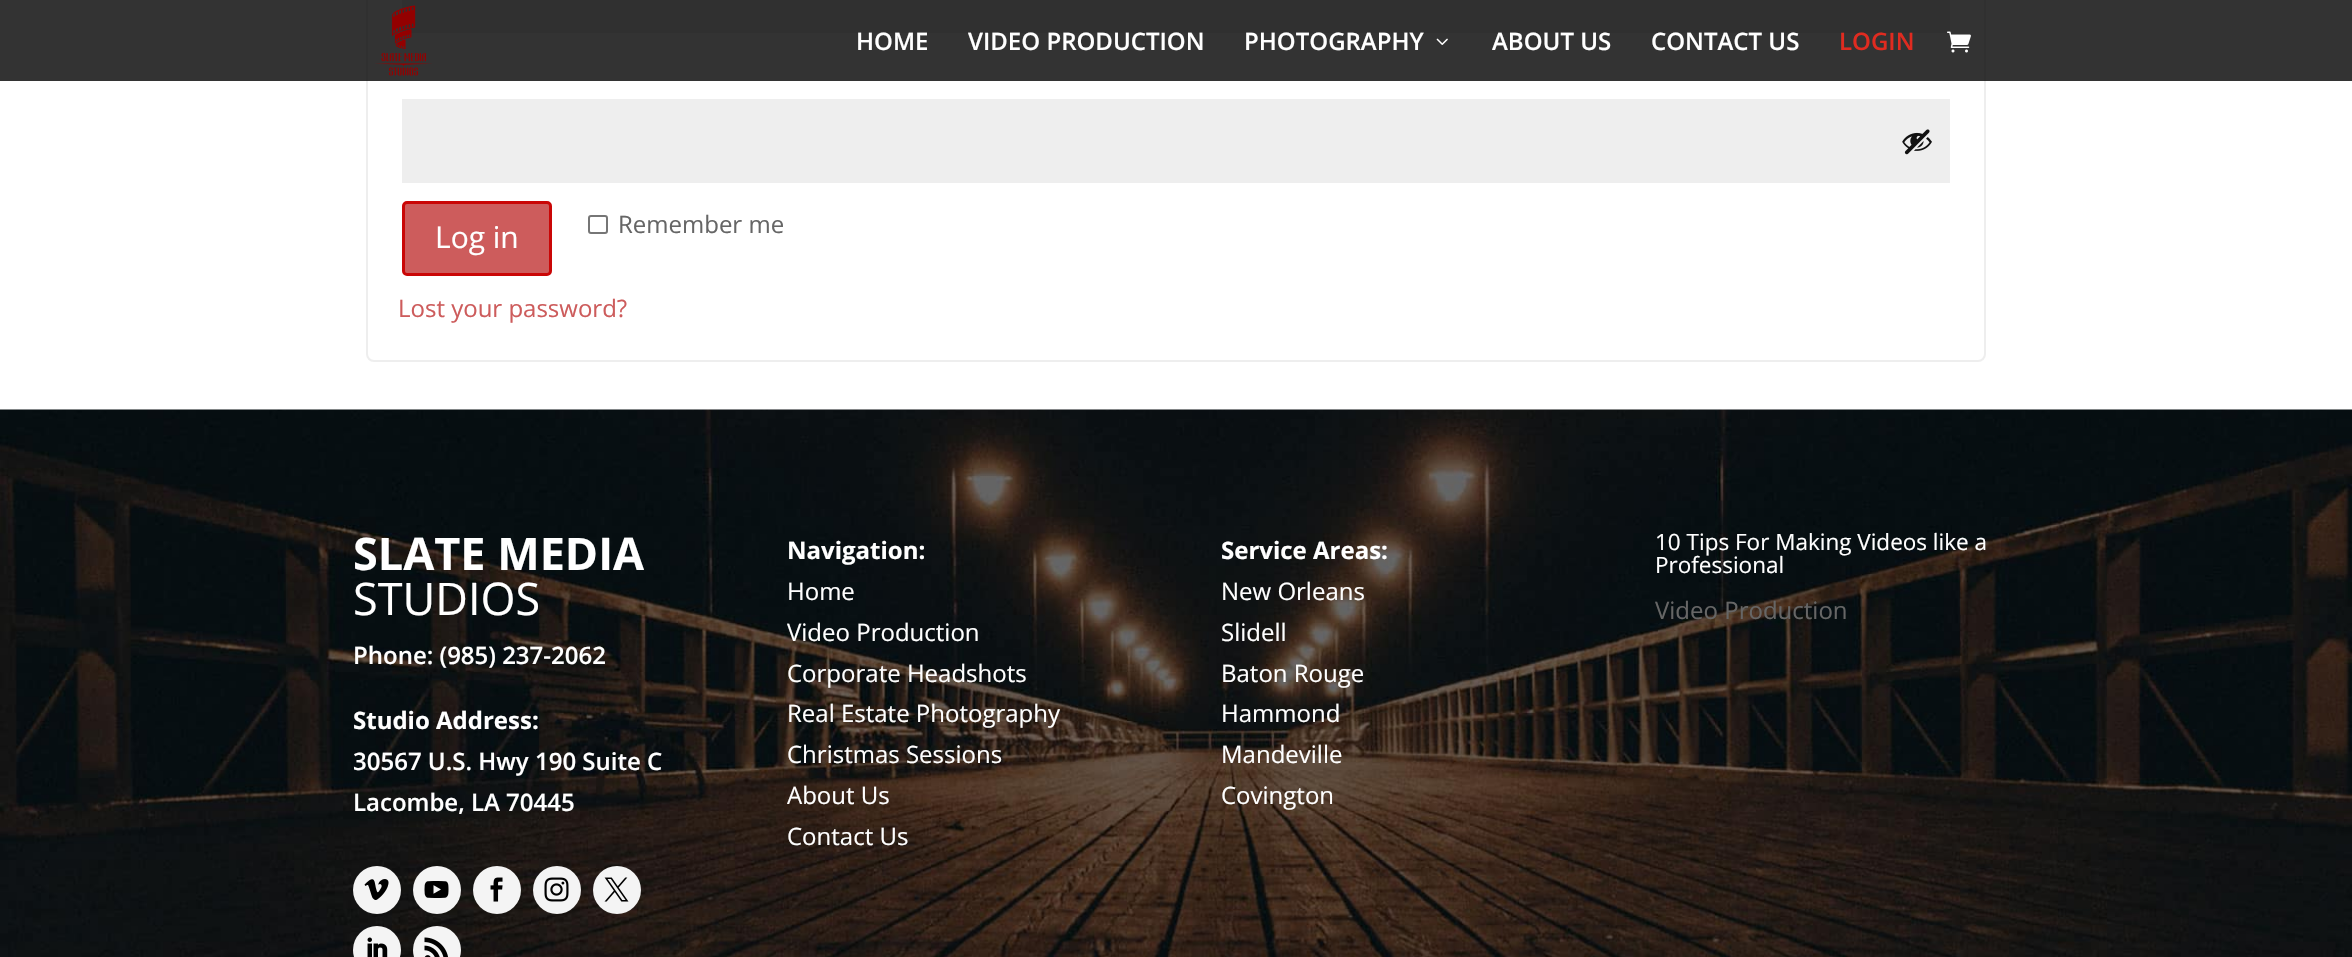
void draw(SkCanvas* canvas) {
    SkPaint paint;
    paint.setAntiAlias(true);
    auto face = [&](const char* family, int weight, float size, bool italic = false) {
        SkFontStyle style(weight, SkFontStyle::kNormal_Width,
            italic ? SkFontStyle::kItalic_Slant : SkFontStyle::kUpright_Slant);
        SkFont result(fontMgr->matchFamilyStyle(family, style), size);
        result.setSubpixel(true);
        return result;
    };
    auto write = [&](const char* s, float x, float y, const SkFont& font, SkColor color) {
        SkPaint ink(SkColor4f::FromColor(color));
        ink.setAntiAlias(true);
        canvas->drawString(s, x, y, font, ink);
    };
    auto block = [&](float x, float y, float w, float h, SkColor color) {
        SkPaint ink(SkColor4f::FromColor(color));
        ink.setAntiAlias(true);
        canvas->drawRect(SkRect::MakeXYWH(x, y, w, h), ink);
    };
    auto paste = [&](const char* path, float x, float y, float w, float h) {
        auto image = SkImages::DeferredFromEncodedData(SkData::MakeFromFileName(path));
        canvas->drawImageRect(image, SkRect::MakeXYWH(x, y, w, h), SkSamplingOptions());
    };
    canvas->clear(SK_ColorWHITE);
    paint.setStyle(SkPaint::kStroke_Style);
    paint.setStrokeWidth(2);
    paint.setColor(SkColorSetRGB(238, 238, 238));
    canvas->drawRoundRect(SkRect::MakeXYWH(367, -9, 1618, 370), 7, 7, paint);
    block(402, 0, 1548, 33, SkColorSetRGB(238, 238, 238));
    block(0, 0, 2352, 81, SkColorSetARGB(204, 0, 0, 0));
    paste("pic1.png", 375, 5, 57, 71);
    auto kFont1 = face("Open Sans", 600, 24);
    write("HOME", 856, 50, kFont1, SK_ColorWHITE);
    write("VIDEO PRODUCTION", 968, 50, kFont1, SK_ColorWHITE);
    write("PHOTOGRAPHY", 1244, 50, kFont1, SK_ColorWHITE);
    paste("pic2.png", 1436, 38, 12, 7);
    write("ABOUT US", 1492, 50, kFont1, SK_ColorWHITE);
    write("CONTACT US", 1651, 50, kFont1, SK_ColorWHITE);
    write("LOGIN", 1839, 50, kFont1, SkColorSetRGB(224, 43, 32));
    paste("pic3.png", 1947, 31, 24, 22);
    block(402, 99, 1548, 84, SkColorSetRGB(238, 238, 238));
    paste("pic4.png", 1902, 129, 30, 26);
    paint.setStyle(SkPaint::kFill_Style);
    paint.setColor(SkColorSetRGB(205, 92, 92));
    canvas->drawRoundRect(SkRect::MakeXYWH(403.5f, 202.5f, 147, 72), 3.5f, 3.5f, paint);
    paint.setStyle(SkPaint::kStroke_Style);
    paint.setStrokeWidth(3);
    paint.setColor(SkColorSetRGB(202, 6, 6));
    canvas->drawRoundRect(SkRect::MakeXYWH(403.5f, 202.5f, 147, 72), 3.5f, 3.5f, paint);
    auto kFont2 = face("Open Sans", 400, 30);
    write("Log in", 435, 248, kFont2, SK_ColorWHITE);
    paint.setStrokeWidth(2);
    paint.setColor(SkColorSetRGB(118, 118, 118));
    canvas->drawRoundRect(SkRect::MakeXYWH(589, 216, 18, 17), 2, 2, paint);
    auto kFont3 = face("Open Sans", 400, 24);
    write("Remember me", 618, 233, kFont3, SkColorSetRGB(102, 102, 102));
    write("Lost your password?", 398, 317, kFont3, SkColorSetRGB(205, 92, 92));
    paste("pic5.png", 0, 409, 2352, 548);
    auto kFont4 = face("Open Sans", 700, 45);
    write("SLATE MEDIA", 353, 570, kFont4, SK_ColorWHITE);
    auto kFont5 = face("Open Sans", 400, 45);
    write("STUDIOS", 353, 615, kFont5, SK_ColorWHITE);
    write("Phone: (985) 237-2062", 353, 664, kFont1, SK_ColorWHITE);
    auto kFont6 = face("Open Sans", 700, 24);
    write("Studio Address:", 353, 729, kFont6, SK_ColorWHITE);
    write("30567 U.S. Hwy 190 Suite C", 353, 770, kFont1, SK_ColorWHITE);
    write("Lacombe, LA 70445", 353, 811, kFont1, SK_ColorWHITE);
    paint.setStyle(SkPaint::kFill_Style);
    paint.setColor(SkColorSetRGB(244, 244, 244));
    canvas->drawCircle(377, 890, 24, paint);
    paste("pic6.png", 364, 879, 25, 21);
    canvas->drawCircle(437, 890, 24, paint);
    paste("pic7.png", 424, 881, 25, 17);
    canvas->drawCircle(497, 890, 24, paint);
    paste("pic8.png", 490, 877, 13, 25);
    canvas->drawCircle(557, 890, 24, paint);
    paste("pic9.png", 544, 877, 25, 25);
    canvas->drawCircle(617, 890, 24, paint);
    paste("pic10.png", 604, 877, 25, 25);
    canvas->drawCircle(377, 950, 24, paint);
    paste("pic11.png", 367, 937, 21, 20);
    canvas->drawCircle(437, 950, 24, paint);
    paste("pic12.png", 424, 937, 24, 20);
    write("Navigation:", 787, 559, kFont6, SK_ColorWHITE);
    write("Home", 787, 600, kFont3, SK_ColorWHITE);
    write("Video Production", 787, 641, kFont3, SK_ColorWHITE);
    write("Corporate Headshots", 787, 682, kFont3, SK_ColorWHITE);
    write("Real Estate Photography", 787, 722, kFont3, SK_ColorWHITE);
    write("Christmas Sessions", 787, 763, kFont3, SK_ColorWHITE);
    write("About Us", 787, 804, kFont3, SK_ColorWHITE);
    write("Contact Us", 787, 845, kFont3, SK_ColorWHITE);
    write("Service Areas:", 1221, 559, kFont6, SK_ColorWHITE);
    write("New Orleans", 1221, 600, kFont3, SK_ColorWHITE);
    write("Slidell", 1221, 641, kFont3, SK_ColorWHITE);
    write("Baton Rouge", 1221, 682, kFont3, SK_ColorWHITE);
    write("Hammond", 1221, 722, kFont3, SK_ColorWHITE);
    write("Mandeville", 1221, 763, kFont3, SK_ColorWHITE);
    write("Covington", 1221, 804, kFont3, SK_ColorWHITE);
    auto kFont7 = face("Open Sans", 400, 22.5f);
    write("10 Tips For Making Videos like a", 1655, 550, kFont7, SK_ColorWHITE);
    write("Professional", 1655, 573, kFont7, SK_ColorWHITE);
    write("Video Production", 1655, 619, kFont3, SkColorSetRGB(102, 102, 102));
}
